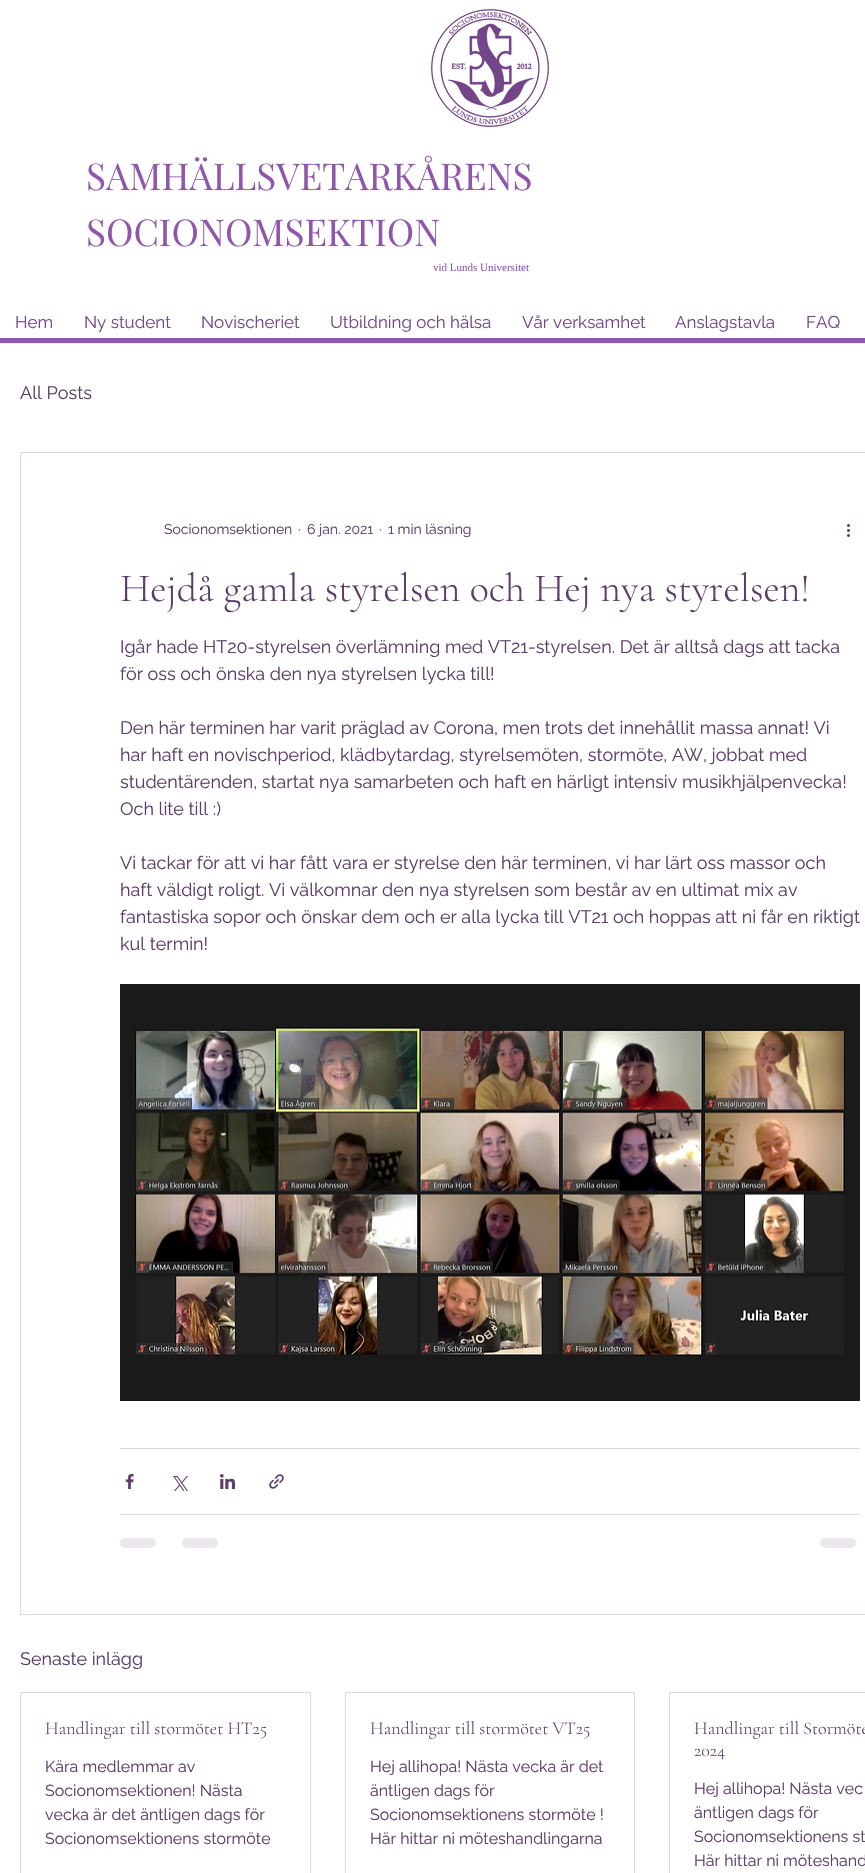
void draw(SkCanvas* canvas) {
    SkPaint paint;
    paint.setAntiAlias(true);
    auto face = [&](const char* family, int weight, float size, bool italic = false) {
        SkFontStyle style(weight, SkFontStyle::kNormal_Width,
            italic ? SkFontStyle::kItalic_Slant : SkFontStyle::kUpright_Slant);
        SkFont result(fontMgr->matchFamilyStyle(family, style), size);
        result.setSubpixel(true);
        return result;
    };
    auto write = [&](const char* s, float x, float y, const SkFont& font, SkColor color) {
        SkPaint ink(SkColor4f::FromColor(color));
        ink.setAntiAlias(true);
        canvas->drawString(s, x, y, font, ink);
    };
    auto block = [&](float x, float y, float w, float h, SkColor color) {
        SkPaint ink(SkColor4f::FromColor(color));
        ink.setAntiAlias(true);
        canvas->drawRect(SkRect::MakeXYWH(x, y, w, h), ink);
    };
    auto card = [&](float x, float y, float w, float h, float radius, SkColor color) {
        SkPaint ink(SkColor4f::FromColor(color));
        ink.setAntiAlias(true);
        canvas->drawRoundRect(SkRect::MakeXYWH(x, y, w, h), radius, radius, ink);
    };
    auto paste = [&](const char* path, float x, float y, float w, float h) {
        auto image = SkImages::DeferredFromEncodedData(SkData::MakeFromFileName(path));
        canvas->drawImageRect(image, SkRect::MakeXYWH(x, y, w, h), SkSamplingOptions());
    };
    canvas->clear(SK_ColorWHITE);
    paste("pic1.png", 431, 9, 118, 118);
    auto kFont1 = face("Playfair Display", 400, 37);
    write("SAMHÄLLSVETARKÅRENS", 86, 190, kFont1, SkColorSetRGB(143, 86, 171));
    write("SOCIONOMSEKTION", 86, 246, kFont1, SkColorSetRGB(143, 86, 171));
    auto kFont2 = face("Liberation Serif", 400, 11);
    write("vid Lunds Universitet", 433, 271, kFont2, SkColorSetRGB(143, 86, 171));
    auto kFont3 = face("Raleway", 400, 17);
    write("Hem", 15, 328, kFont3, SkColorSetRGB(115, 68, 138));
    write("Ny student", 84, 328, kFont3, SkColorSetRGB(115, 68, 138));
    write("Novischeriet", 201, 328, kFont3, SkColorSetRGB(115, 68, 138));
    write("Utbildning och hälsa", 330, 328, kFont3, SkColorSetRGB(115, 68, 138));
    write("Vår verksamhet", 522, 328, kFont3, SkColorSetRGB(115, 68, 138));
    write("Anslagstavla", 675, 328, kFont3, SkColorSetRGB(115, 68, 138));
    write("FAQ", 806, 328, kFont3, SkColorSetRGB(115, 68, 138));
    block(0, 338, 865, 5, SkColorSetRGB(143, 86, 171));
    auto kFont4 = face("Raleway", 400, 18);
    write("All Posts", 20, 399, kFont4, SkColorSetRGB(94, 60, 106));
    paint.setStyle(SkPaint::kStroke_Style);
    paint.setStrokeWidth(1);
    paint.setColor(SkColorSetRGB(227, 214, 232));
    canvas->drawRect(SkRect::MakeXYWH(20.5f, 452.5f, 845, 1162), paint);
    auto kFont5 = face("Raleway", 400, 14);
    write("Socionomsektionen", 164, 534, kFont5, SkColorSetRGB(94, 60, 106));
    write("·", 298, 534, kFont5, SkColorSetRGB(94, 60, 106));
    write("6 jan. 2021", 307, 534, kFont5, SkColorSetRGB(94, 60, 106));
    write("·", 379, 534, kFont5, SkColorSetRGB(94, 60, 106));
    write("1 min läsning", 388, 534, kFont5, SkColorSetRGB(94, 60, 106));
    paste("pic2.png", 847, 524, 3, 13);
    auto kFont6 = face("Cormorant Garamond", 300, 40);
    write("Hejdå gamla styrelsen och Hej nya styrelsen!", 120, 601, kFont6, SkColorSetRGB(94, 60, 106));
    write("Igår hade HT20-styrelsen överlämning med VT21-styrelsen. Det är alltså dags att tacka", 120, 653, kFont4, SkColorSetRGB(94, 60, 106));
    write("för oss och önska den nya styrelsen lycka till!", 120, 680, kFont4, SkColorSetRGB(94, 60, 106));
    write("Den här terminen har varit präglad av Corona, men trots det innehållit massa annat! Vi", 120, 734, kFont4, SkColorSetRGB(94, 60, 106));
    write("har haft en novischperiod, klädbytardag, styrelsemöten, stormöte, AW, jobbat med", 120, 761, kFont4, SkColorSetRGB(94, 60, 106));
    write("studentärenden, startat nya samarbeten och haft en härligt intensiv musikhjälpenvecka!", 120, 788, kFont4, SkColorSetRGB(94, 60, 106));
    write("Och lite till :)", 120, 815, kFont4, SkColorSetRGB(94, 60, 106));
    write("Vi tackar för att vi har fått vara er styrelse den här terminen, vi har lärt oss massor och", 120, 869, kFont4, SkColorSetRGB(94, 60, 106));
    write("haft väldigt roligt. Vi välkomnar den nya styrelsen som består av en ultimat mix av", 120, 896, kFont4, SkColorSetRGB(94, 60, 106));
    write("fantastiska sopor och önskar dem och er alla lycka till VT21 och hoppas att ni får en riktigt", 120, 923, kFont4, SkColorSetRGB(94, 60, 106));
    write("kul termin!", 120, 950, kFont4, SkColorSetRGB(94, 60, 106));
    paste("pic3.png", 120, 984, 740, 417);
    block(120, 1448, 740, 1, SkColorSetRGB(223, 216, 225));
    paste("pic4.png", 125, 1474, 9, 15);
    paste("pic5.png", 173, 1476, 15, 15);
    paste("pic6.png", 220, 1474, 15, 15);
    paste("pic7.png", 269, 1474, 15, 15);
    block(120, 1514, 740, 1, SkColorSetRGB(223, 216, 225));
    card(120, 1538, 36, 10, 5, SkColorSetRGB(236, 232, 237));
    card(182, 1538, 36, 10, 5, SkColorSetRGB(236, 232, 237));
    card(820, 1538, 36, 10, 5, SkColorSetRGB(236, 232, 237));
    write("Senaste inlägg", 20, 1665, kFont4, SkColorSetRGB(94, 60, 106));
    canvas->drawRect(SkRect::MakeXYWH(20.5f, 1692.5f, 290, 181), paint);
    auto kFont7 = face("Cormorant Garamond", 300, 18);
    write("Handlingar till stormötet HT25", 45, 1734, kFont7, SkColorSetRGB(94, 60, 106));
    auto kFont8 = face("Raleway", 400, 16);
    write("Kära medlemmar av", 45, 1772, kFont8, SkColorSetRGB(94, 60, 106));
    write("Socionomsektionen! Nästa", 45, 1796, kFont8, SkColorSetRGB(94, 60, 106));
    write("vecka är det äntligen dags för", 45, 1820, kFont8, SkColorSetRGB(94, 60, 106));
    write("Socionomsektionens stormöte", 45, 1844, kFont8, SkColorSetRGB(94, 60, 106));
    canvas->drawRect(SkRect::MakeXYWH(345.5f, 1692.5f, 289, 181), paint);
    write("Handlingar till stormötet VT25", 370, 1734, kFont7, SkColorSetRGB(94, 60, 106));
    write("Hej allihopa! Nästa vecka är det", 370, 1772, kFont8, SkColorSetRGB(94, 60, 106));
    write("äntligen dags för", 370, 1796, kFont8, SkColorSetRGB(94, 60, 106));
    write("Socionomsektionens stormöte !", 370, 1820, kFont8, SkColorSetRGB(94, 60, 106));
    write("Här hittar ni möteshandlingarna", 370, 1844, kFont8, SkColorSetRGB(94, 60, 106));
    canvas->drawRect(SkRect::MakeXYWH(669.5f, 1692.5f, 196, 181), paint);
    write("Handlingar till Stormöte", 694, 1734, kFont7, SkColorSetRGB(94, 60, 106));
    write("2024", 694, 1756, kFont7, SkColorSetRGB(94, 60, 106));
    write("Hej allihopa! Nästa vec", 694, 1794, kFont8, SkColorSetRGB(94, 60, 106));
    write("äntligen dags för", 694, 1818, kFont8, SkColorSetRGB(94, 60, 106));
    write("Socionomsektionens st", 694, 1842, kFont8, SkColorSetRGB(94, 60, 106));
    write("Här hittar ni möteshand", 694, 1866, kFont8, SkColorSetRGB(94, 60, 106));
}
